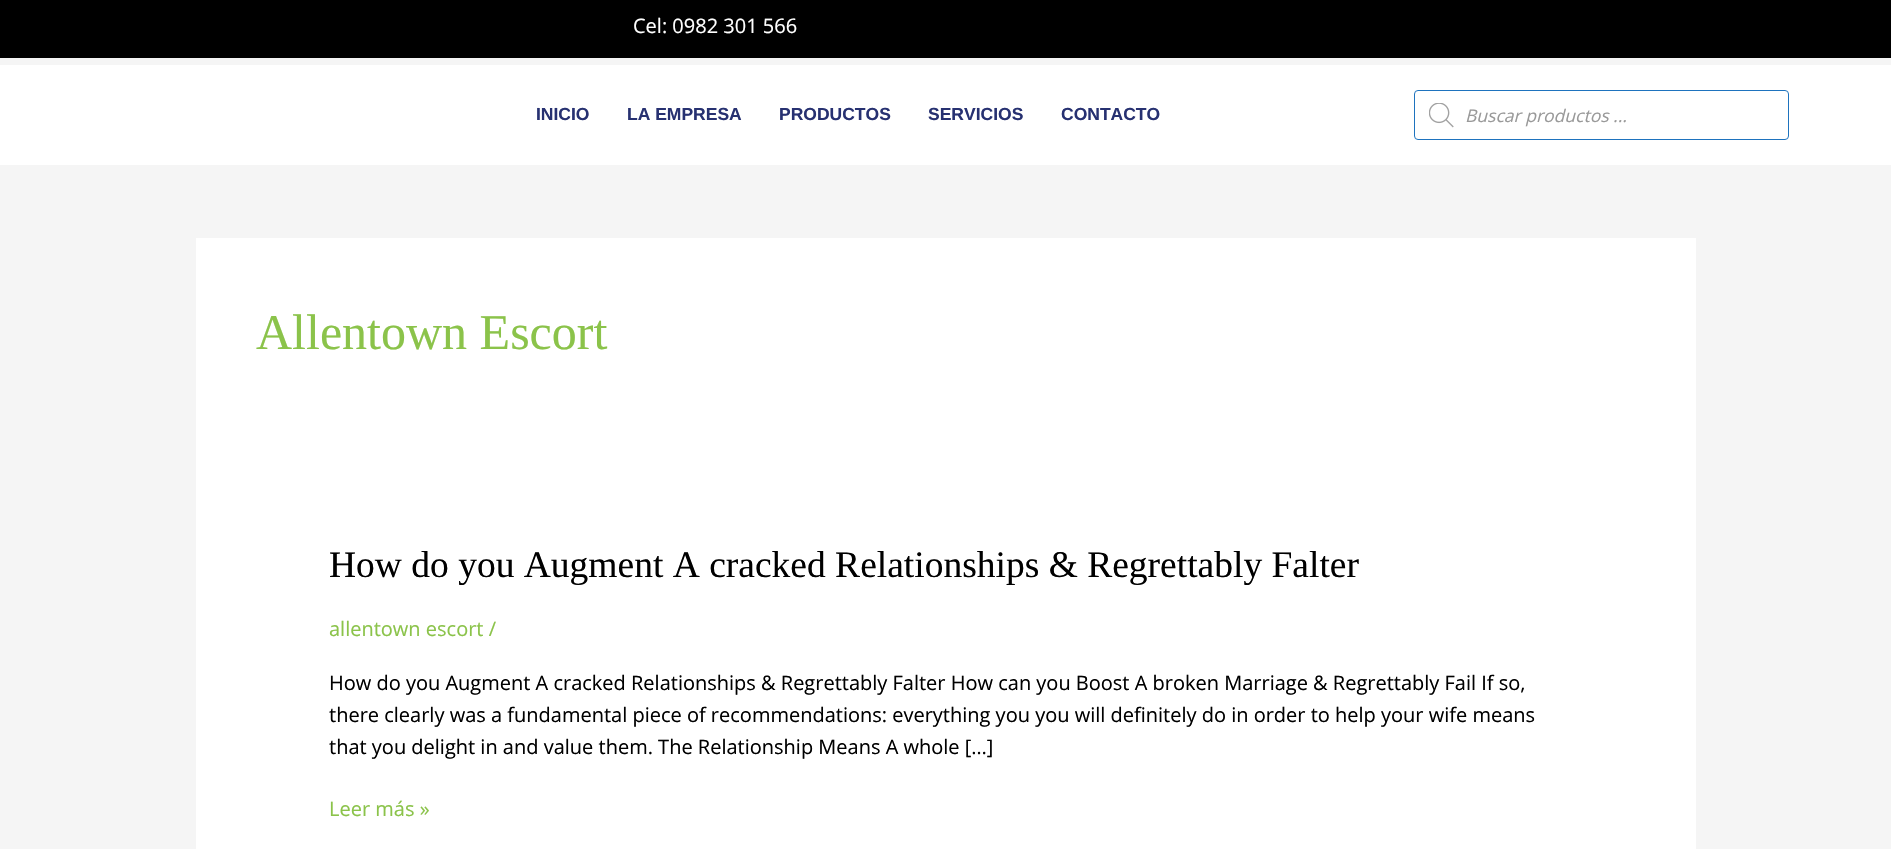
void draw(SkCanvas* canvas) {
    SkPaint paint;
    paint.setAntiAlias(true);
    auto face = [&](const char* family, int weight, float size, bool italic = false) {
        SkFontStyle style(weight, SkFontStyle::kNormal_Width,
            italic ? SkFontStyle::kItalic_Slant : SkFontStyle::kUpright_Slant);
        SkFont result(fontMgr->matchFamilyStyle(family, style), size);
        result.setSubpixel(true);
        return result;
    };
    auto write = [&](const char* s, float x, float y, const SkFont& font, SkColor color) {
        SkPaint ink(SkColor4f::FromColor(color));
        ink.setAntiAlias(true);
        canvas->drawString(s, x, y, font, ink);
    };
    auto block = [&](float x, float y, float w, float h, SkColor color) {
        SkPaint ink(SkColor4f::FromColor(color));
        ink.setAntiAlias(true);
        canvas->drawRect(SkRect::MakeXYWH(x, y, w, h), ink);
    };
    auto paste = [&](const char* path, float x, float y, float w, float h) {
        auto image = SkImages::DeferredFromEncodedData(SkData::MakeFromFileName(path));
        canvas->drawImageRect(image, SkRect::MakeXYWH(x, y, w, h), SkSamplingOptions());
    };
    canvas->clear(SkColorSetRGB(245, 245, 245));
    block(0, 0, 1891, 58, SK_ColorBLACK);
    auto kFont1 = face("Open Sans", 400, 20);
    write("Cel: 0982 301 566", 633, 33, kFont1, SK_ColorWHITE);
    block(0, 65, 1891, 100, SK_ColorWHITE);
    auto kFont2 = face("Liberation Sans", 700, 17.5f);
    write("INICIO", 536, 120, kFont2, SkColorSetRGB(39, 49, 113));
    write("LA EMPRESA", 627, 120, kFont2, SkColorSetRGB(39, 49, 113));
    write("PRODUCTOS", 779, 120, kFont2, SkColorSetRGB(39, 49, 113));
    write("SERVICIOS", 928, 120, kFont2, SkColorSetRGB(39, 49, 113));
    write("CONTACTO", 1061, 120, kFont2, SkColorSetRGB(39, 49, 113));
    paint.setStyle(SkPaint::kStroke_Style);
    paint.setStrokeWidth(1);
    paint.setColor(SkColorSetRGB(30, 115, 190));
    canvas->drawRoundRect(SkRect::MakeXYWH(1414.5f, 90.5f, 374, 49), 3.5f, 3.5f, paint);
    paste("pic1.png", 1429, 103, 25, 25);
    auto kFont3 = face("Open Sans", 400, 17.5f, true);
    write("Buscar productos ...", 1465, 122, kFont3, SkColorSetRGB(153, 153, 153));
    block(196, 238, 1500, 611, SK_ColorWHITE);
    auto kFont4 = face("Liberation Serif", 400, 50);
    write("Allentown Escort", 256, 349, kFont4, SkColorSetRGB(139, 195, 74));
    auto kFont5 = face("Liberation Serif", 400, 37.5f);
    write("How do you Augment A cracked Relationships & Regrettably Falter", 329, 577, kFont5, SK_ColorBLACK);
    write("allentown escort /", 329, 636, kFont1, SkColorSetRGB(139, 195, 74));
    write("How do you Augment A cracked Relationships & Regrettably Falter How can you Boost A broken Marriage & Regrettably Fail If so,", 329, 690, kFont1, SK_ColorBLACK);
    write("there clearly was a fundamental piece of recommendations: everything you you will definitely do in order to help your wife means", 329, 722, kFont1, SK_ColorBLACK);
    write("that you delight in and value them. The Relationship Means A whole […]", 329, 754, kFont1, SK_ColorBLACK);
    write("Leer más »", 329, 816, kFont1, SkColorSetRGB(139, 195, 74));
}
